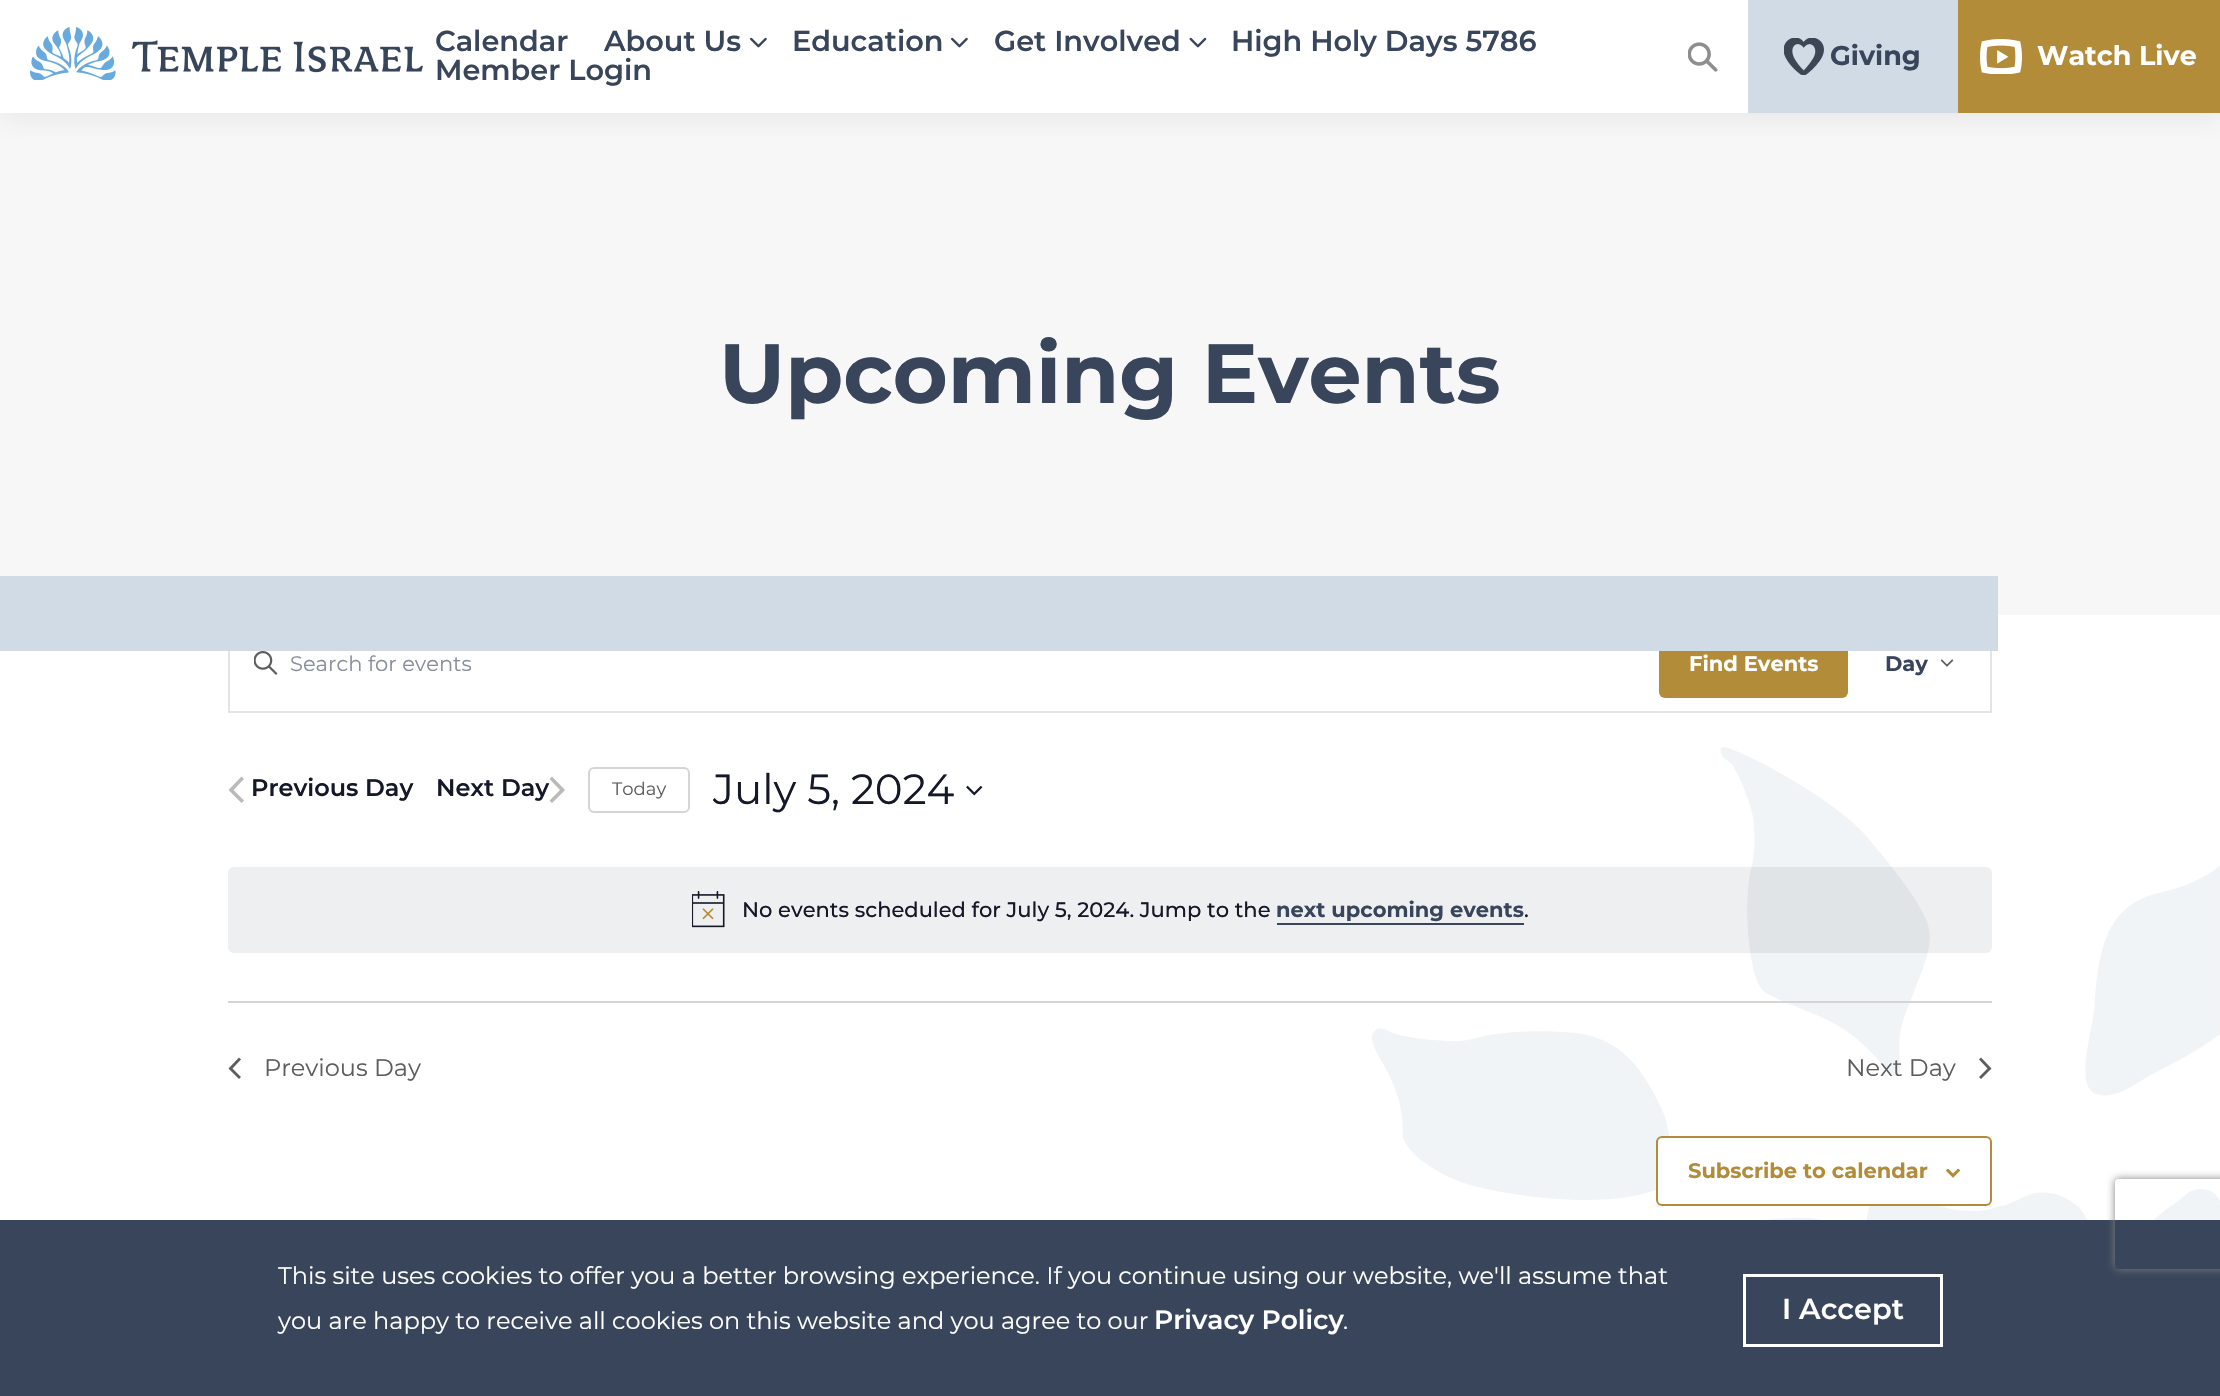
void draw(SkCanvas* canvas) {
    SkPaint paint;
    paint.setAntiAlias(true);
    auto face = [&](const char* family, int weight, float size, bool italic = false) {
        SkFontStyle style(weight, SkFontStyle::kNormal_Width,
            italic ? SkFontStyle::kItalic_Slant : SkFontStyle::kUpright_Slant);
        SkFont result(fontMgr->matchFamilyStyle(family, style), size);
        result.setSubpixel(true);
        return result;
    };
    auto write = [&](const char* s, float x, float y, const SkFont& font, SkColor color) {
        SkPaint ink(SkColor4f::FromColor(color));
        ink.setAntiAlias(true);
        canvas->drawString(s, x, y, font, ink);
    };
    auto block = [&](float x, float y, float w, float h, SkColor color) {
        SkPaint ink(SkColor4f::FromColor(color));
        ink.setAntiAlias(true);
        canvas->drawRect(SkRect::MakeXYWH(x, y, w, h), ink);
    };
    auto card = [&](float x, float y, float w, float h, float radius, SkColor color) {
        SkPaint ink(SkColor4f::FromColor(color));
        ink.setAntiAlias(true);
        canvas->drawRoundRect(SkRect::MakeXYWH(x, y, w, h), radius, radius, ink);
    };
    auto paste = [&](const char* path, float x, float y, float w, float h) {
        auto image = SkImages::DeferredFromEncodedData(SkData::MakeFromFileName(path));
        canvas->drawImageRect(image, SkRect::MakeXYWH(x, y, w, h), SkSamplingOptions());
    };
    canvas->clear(SK_ColorWHITE);
    block(0, 113, 2220, 502, SkColorSetRGB(247, 247, 247));
    paint.setColor(SkColorSetARGB(48, 128, 128, 128));
    paint.setMaskFilter(SkMaskFilter::MakeBlur(kNormal_SkBlurStyle, 15));
    canvas->drawRect(SkRect::MakeXYWH(0, 0, 2220, 113), paint);
    paint.setMaskFilter(nullptr);
    block(0, 0, 1748, 113, SK_ColorWHITE);
    paste("pic1.png", 30, 27, 393, 53);
    auto kFont1 = face("Montserrat", 600, 28.75f);
    write("Calendar", 435, 51, kFont1, SkColorSetRGB(56, 69, 90));
    write("About Us", 604, 51, kFont1, SkColorSetRGB(56, 69, 90));
    paste("pic2.png", 750, 37, 17, 11);
    write("Education", 792, 51, kFont1, SkColorSetRGB(56, 69, 90));
    paste("pic2.png", 951, 37, 17, 11);
    write("Get Involved", 994, 51, kFont1, SkColorSetRGB(56, 69, 90));
    paste("pic3.png", 1189, 37, 18, 11);
    write("High Holy Days 5786", 1231, 51, kFont1, SkColorSetRGB(56, 69, 90));
    write("Member Login", 435, 80, kFont1, SkColorSetRGB(56, 69, 90));
    paste("pic4.png", 1688, 42, 30, 30);
    block(1748, 0, 210, 113, SkColorSetRGB(209, 219, 229));
    paste("pic5.png", 1784, 38, 40, 37);
    auto kFont2 = face("Montserrat", 700, 27);
    write("Giving", 1830, 65, kFont2, SkColorSetRGB(56, 69, 90));
    block(1958, 0, 262, 113, SkColorSetRGB(178, 140, 56));
    paste("pic6.png", 1980, 39, 42, 35);
    write("Watch Live", 2037, 65, kFont2, SK_ColorWHITE);
    auto kFont3 = face("Montserrat", 700, 84);
    write("Upcoming Events", 719, 403, kFont3, SkColorSetRGB(56, 69, 90));
    paint.setStyle(SkPaint::kStroke_Style);
    paint.setStrokeWidth(2);
    paint.setColor(SkColorSetRGB(228, 228, 228));
    canvas->drawRect(SkRect::MakeXYWH(229, 616, 1762, 96), paint);
    card(1659, 630, 189, 68, 6, SkColorSetRGB(178, 140, 56));
    block(0, 576, 1998, 75, SkColorSetRGB(209, 219, 229));
    paste("pic7.png", 254, 651, 24, 24);
    auto kFont4 = face("Montserrat", 400, 21);
    write("Search for events", 290, 671, kFont4, SkColorSetRGB(136, 143, 156));
    auto kFont5 = face("Montserrat", 700, 21);
    write("Find Events", 1689, 671, kFont5, SK_ColorWHITE);
    write("Day", 1885, 671, kFont5, SkColorSetRGB(56, 69, 90));
    paste("pic8.png", 1940, 659, 14, 8);
    paint.setStyle(SkPaint::kFill_Style);
    paint.setColor(SkColorSetRGB(186, 186, 186));
    canvas->drawPath(SkPathBuilder().moveTo(244, 800.5f).lineTo(241.5f, 803).lineTo(228.5f, 790).lineTo(241.5f, 776.5f).lineTo(244, 779).lineTo(233.5f, 790).close().detach(), paint);
    auto kFont6 = face("Montserrat", 600, 24);
    write("Previous Day", 251, 796, kFont6, SkColorSetRGB(20, 24, 39));
    write("Next Day", 436, 796, kFont6, SkColorSetRGB(20, 24, 39));
    canvas->drawPath(SkPathBuilder().moveTo(549.5f, 779).lineTo(552, 776.5f).lineTo(565, 790).lineTo(552, 803).lineTo(549.5f, 800.5f).lineTo(560, 790).close().detach(), paint);
    paint.setStyle(SkPaint::kStroke_Style);
    paint.setColor(SkColorSetRGB(213, 213, 213));
    canvas->drawRoundRect(SkRect::MakeXYWH(589, 768, 100, 44), 5, 5, paint);
    auto kFont7 = face("Montserrat", 400, 18);
    write("Today", 612, 795, kFont7, SkColorSetRGB(93, 93, 93));
    auto kFont8 = face("Montserrat", 400, 42);
    write("July 5, 2024", 713, 804, kFont8, SkColorSetRGB(20, 24, 39));
    paste("pic9.png", 966, 785, 17, 11);
    paste("pic12.png", 1371, 747, 849, 473);
    card(228, 867, 1764, 86, 6, SkColorSetARGB(18, 20, 24, 39));
    paste("pic10.png", 692, 891, 33, 37);
    auto kFont9 = face("Montserrat", 500, 21);
    write("No events scheduled for July 5, 2024. Jump to the", 742, 917, kFont9, SkColorSetRGB(20, 24, 39));
    write("next upcoming events", 1276, 917, kFont5, SkColorSetRGB(56, 69, 90));
    block(1277, 923, 247, 2, SkColorSetRGB(56, 69, 90));
    write(".", 1524, 917, kFont9, SkColorSetRGB(20, 24, 39));
    block(228, 1001, 1764, 2, SkColorSetRGB(213, 213, 213));
    paint.setStyle(SkPaint::kFill_Style);
    paint.setColor(SkColorSetRGB(93, 93, 93));
    canvas->drawPath(SkPathBuilder().moveTo(241, 1077).lineTo(239, 1079).lineTo(228.5f, 1068.5f).lineTo(239, 1057.5f).lineTo(241, 1059.5f).lineTo(232.5f, 1068.5f).close().detach(), paint);
    auto kFont10 = face("Montserrat", 400, 24);
    write("Previous Day", 264, 1076, kFont10, SkColorSetRGB(93, 93, 93));
    write("Next Day", 1846, 1076, kFont10, SkColorSetRGB(93, 93, 93));
    canvas->drawPath(SkPathBuilder().moveTo(1979, 1059.5f).lineTo(1981, 1057.5f).lineTo(1991.5f, 1068.5f).lineTo(1981, 1079).lineTo(1979, 1077).lineTo(1987.5f, 1068.5f).close().detach(), paint);
    paint.setColor(SK_ColorWHITE);
    canvas->drawRoundRect(SkRect::MakeXYWH(1657, 1137, 334, 68), 5, 5, paint);
    paint.setStyle(SkPaint::kStroke_Style);
    paint.setColor(SkColorSetRGB(178, 140, 56));
    canvas->drawRoundRect(SkRect::MakeXYWH(1657, 1137, 334, 68), 5, 5, paint);
    write("Subscribe to calendar", 1688, 1178, kFont5, SkColorSetRGB(178, 140, 56));
    paste("pic11.png", 1946, 1169, 15, 9);
    block(0, 1220, 2220, 176, SkColorSetRGB(56, 69, 90));
    write("This site uses cookies to offer you a better browsing experience. If you continue using our website, we'll assume that", 278, 1284, kFont10, SK_ColorWHITE);
    write("you are happy to receive all cookies on this website and you agree to our", 278, 1329, kFont10, SK_ColorWHITE);
    auto kFont11 = face("Montserrat", 600, 26.5f);
    write("Privacy Policy", 1154, 1329, kFont11, SK_ColorWHITE);
    write(".", 1343, 1329, kFont10, SK_ColorWHITE);
    paint.setStrokeWidth(3);
    paint.setColor(SK_ColorWHITE);
    canvas->drawRect(SkRect::MakeXYWH(1744.5f, 1275.5f, 197, 70), paint);
    write("I Accept", 1782, 1319, kFont1, SK_ColorWHITE);
    canvas->save();
    canvas->clipPath(SkPathBuilder(SkPathFillType::kEvenOdd).moveTo(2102, 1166).lineTo(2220, 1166).lineTo(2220, 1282).lineTo(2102, 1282).close().moveTo(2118, 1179).lineTo(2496, 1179).cubicTo(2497.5f, 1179, 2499, 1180.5f, 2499, 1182).lineTo(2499, 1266).cubicTo(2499, 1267.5f, 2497.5f, 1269, 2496, 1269).lineTo(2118, 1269).cubicTo(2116.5f, 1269, 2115, 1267.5f, 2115, 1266).lineTo(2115, 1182).cubicTo(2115, 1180.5f, 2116.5f, 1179, 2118, 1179).close().detach(), true);
    paint.setStyle(SkPaint::kFill_Style);
    paint.setColor(SkColorSetRGB(128, 128, 128));
    paint.setMaskFilter(SkMaskFilter::MakeBlur(kNormal_SkBlurStyle, 4));
    canvas->drawRoundRect(SkRect::MakeXYWH(2115, 1179, 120, 90), 3, 3, paint);
    paint.setMaskFilter(nullptr);
    canvas->restore();
}
